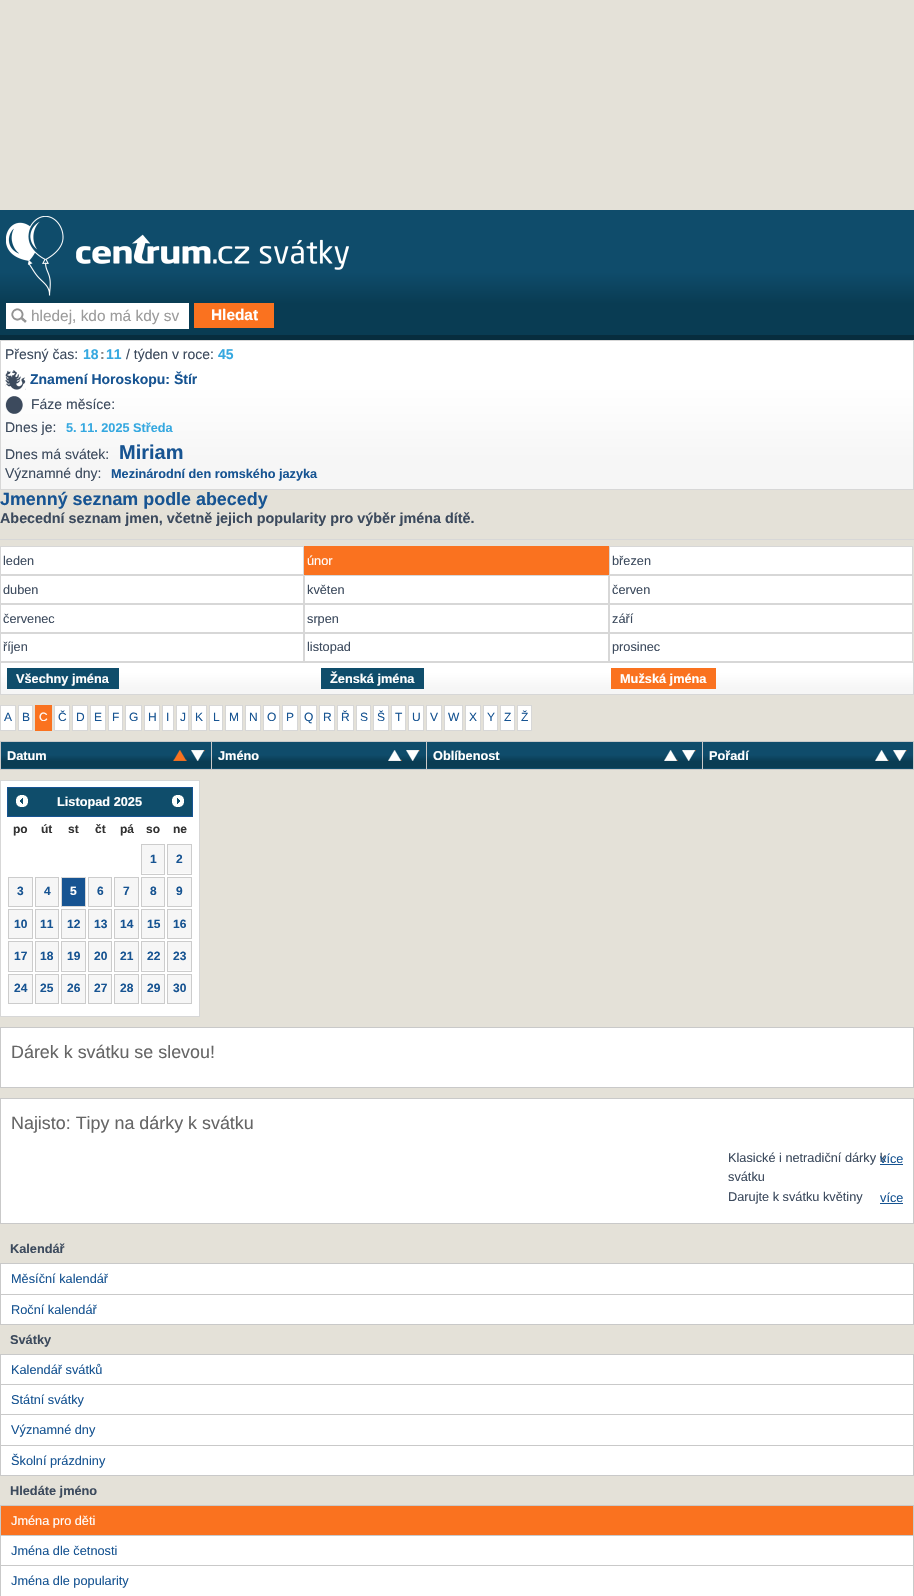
void draw(SkCanvas* canvas) {
    SkPaint paint;
    paint.setAntiAlias(true);
    auto face = [&](const char* family, int weight, float size, bool italic = false) {
        SkFontStyle style(weight, SkFontStyle::kNormal_Width,
            italic ? SkFontStyle::kItalic_Slant : SkFontStyle::kUpright_Slant);
        SkFont result(fontMgr->matchFamilyStyle(family, style), size);
        result.setSubpixel(true);
        return result;
    };
    auto write = [&](const char* s, float x, float y, const SkFont& font, SkColor color) {
        SkPaint ink(SkColor4f::FromColor(color));
        ink.setAntiAlias(true);
        canvas->drawString(s, x, y, font, ink);
    };
    auto block = [&](float x, float y, float w, float h, SkColor color) {
        SkPaint ink(SkColor4f::FromColor(color));
        ink.setAntiAlias(true);
        canvas->drawRect(SkRect::MakeXYWH(x, y, w, h), ink);
    };
    auto paste = [&](const char* path, float x, float y, float w, float h) {
        auto image = SkImages::DeferredFromEncodedData(SkData::MakeFromFileName(path));
        canvas->drawImageRect(image, SkRect::MakeXYWH(x, y, w, h), SkSamplingOptions());
    };
    canvas->clear(SkColorSetRGB(228, 225, 216));
    {
        const SkColor colors[] = {SkColorSetRGB(9, 60, 83), SkColorSetRGB(15, 76, 107)};
        const float stops[] = {0.25f, 0.5f};
        const SkPoint ends[] = {{0, 335}, {0, 210}};
        paint.setShader(SkGradientShader::MakeLinear(ends, colors, stops, 2, SkTileMode::kClamp));
        paint.setAlpha(255);
    }
    canvas->drawRect(SkRect::MakeXYWH(0, 210, 914, 125), paint);
    block(0, 335, 914, 5, SkColorSetRGB(7, 45, 62));
    paste("pic1.png", 6, 216, 343, 80);
    block(6, 303, 183, 26, SK_ColorWHITE);
    paste("pic2.png", 11, 308, 16, 15);
    auto kFont1 = face("Liberation Sans", 400, 15.4f);
    write("hledej, kdo má kdy sv", 31, 321, kFont1, SkColorSetRGB(155, 155, 155));
    block(194, 303, 80, 25, SkColorSetRGB(250, 114, 31));
    auto kFont2 = face("Liberation Sans", 700, 15.4f);
    write("Hledat", 211, 320, kFont2, SK_ColorWHITE);
    {
        const SkColor colors[] = {SkColorSetRGB(246, 246, 246), SK_ColorWHITE};
        const float stops[] = {0.2f, 0.7f};
        const SkPoint ends[] = {{1, 489}, {1, 341}};
        paint.setShader(SkGradientShader::MakeLinear(ends, colors, stops, 2, SkTileMode::kClamp));
        paint.setAlpha(255);
    }
    canvas->drawRect(SkRect::MakeXYWH(1, 341, 912, 148), paint);
    paint.setStyle(SkPaint::kStroke_Style);
    paint.setStrokeWidth(1);
    paint.setShader(nullptr);
    paint.setColor(SkColorSetRGB(215, 215, 215));
    canvas->drawRect(SkRect::MakeXYWH(0.5f, 340.5f, 913, 149), paint);
    auto kFont3 = face("Liberation Sans", 400, 14);
    write("Přesný čas:", 5, 359, kFont3, SkColorSetRGB(60, 74, 93));
    auto kFont4 = face("Liberation Sans", 700, 14);
    write("18", 83, 359, kFont4, SkColorSetRGB(53, 168, 224));
    write(":", 100, 359, kFont4, SkColorSetRGB(132, 130, 128));
    write("11", 106, 359, kFont4, SkColorSetRGB(53, 168, 224));
    write("/ týden v roce:", 126, 359, kFont3, SkColorSetRGB(60, 74, 93));
    write("45", 218, 359, kFont4, SkColorSetRGB(53, 168, 224));
    paste("pic3.png", 5, 370, 21, 20);
    write("Znamení Horoskopu: Štír", 30, 384, kFont4, SkColorSetRGB(23, 84, 146));
    paste("pic4.png", 5, 396, 18, 18);
    write("Fáze měsíce:", 31, 409, kFont3, SkColorSetRGB(60, 74, 93));
    write("Dnes je:", 5, 432, kFont3, SkColorSetRGB(60, 74, 93));
    auto kFont5 = face("Liberation Sans", 700, 12.7f);
    write("5. 11. 2025 Středa", 66, 432, kFont5, SkColorSetRGB(53, 168, 224));
    write("Dnes má svátek:", 5, 459, kFont3, SkColorSetRGB(60, 74, 93));
    auto kFont6 = face("Liberation Sans", 700, 20);
    write("Miriam", 119, 459, kFont6, SkColorSetRGB(23, 84, 146));
    write("Významné dny:", 5, 478, kFont3, SkColorSetRGB(60, 74, 93));
    write("Mezinárodní den romského jazyka", 111, 478, kFont5, SkColorSetRGB(23, 84, 146));
    auto kFont7 = face("Liberation Sans", 700, 17.9f);
    write("Jmenný seznam podle abecedy", 0, 505, kFont7, SkColorSetRGB(23, 84, 146));
    auto kFont8 = face("Liberation Sans", 700, 14.35f);
    write("Abecední seznam jmen, včetně jejich popularity pro výběr jména dítě.", 0, 523, kFont8, SkColorSetRGB(60, 74, 93));
    block(0, 539, 914, 1, SkColorSetRGB(215, 215, 215));
    paint.setStyle(SkPaint::kFill_Style);
    paint.setColor(SK_ColorWHITE);
    canvas->drawRect(SkRect::MakeXYWH(0.5f, 546.5f, 303, 28), paint);
    paint.setStyle(SkPaint::kStroke_Style);
    paint.setColor(SkColorSetRGB(215, 215, 215));
    canvas->drawRect(SkRect::MakeXYWH(0.5f, 546.5f, 303, 28), paint);
    auto kFont9 = face("Liberation Sans", 400, 12.75f);
    write("leden", 3, 565, kFont9, SkColorSetRGB(60, 74, 93));
    block(304, 546, 305, 29, SkColorSetRGB(250, 114, 31));
    write("únor", 307, 565, kFont9, SK_ColorWHITE);
    paint.setStyle(SkPaint::kFill_Style);
    paint.setColor(SK_ColorWHITE);
    canvas->drawRect(SkRect::MakeXYWH(609.5f, 546.5f, 303, 28), paint);
    paint.setStyle(SkPaint::kStroke_Style);
    paint.setColor(SkColorSetRGB(215, 215, 215));
    canvas->drawRect(SkRect::MakeXYWH(609.5f, 546.5f, 303, 28), paint);
    write("březen", 612, 565, kFont9, SkColorSetRGB(60, 74, 93));
    paint.setStyle(SkPaint::kFill_Style);
    paint.setColor(SK_ColorWHITE);
    canvas->drawRect(SkRect::MakeXYWH(0.5f, 575.5f, 303, 28), paint);
    paint.setStyle(SkPaint::kStroke_Style);
    paint.setColor(SkColorSetRGB(215, 215, 215));
    canvas->drawRect(SkRect::MakeXYWH(0.5f, 575.5f, 303, 28), paint);
    write("duben", 3, 594, kFont9, SkColorSetRGB(60, 74, 93));
    paint.setStyle(SkPaint::kFill_Style);
    paint.setColor(SK_ColorWHITE);
    canvas->drawRect(SkRect::MakeXYWH(304.5f, 575.5f, 304, 28), paint);
    paint.setStyle(SkPaint::kStroke_Style);
    paint.setColor(SkColorSetRGB(215, 215, 215));
    canvas->drawRect(SkRect::MakeXYWH(304.5f, 575.5f, 304, 28), paint);
    write("květen", 307, 594, kFont9, SkColorSetRGB(60, 74, 93));
    paint.setStyle(SkPaint::kFill_Style);
    paint.setColor(SK_ColorWHITE);
    canvas->drawRect(SkRect::MakeXYWH(609.5f, 575.5f, 303, 28), paint);
    paint.setStyle(SkPaint::kStroke_Style);
    paint.setColor(SkColorSetRGB(215, 215, 215));
    canvas->drawRect(SkRect::MakeXYWH(609.5f, 575.5f, 303, 28), paint);
    write("červen", 612, 594, kFont9, SkColorSetRGB(60, 74, 93));
    paint.setStyle(SkPaint::kFill_Style);
    paint.setColor(SK_ColorWHITE);
    canvas->drawRect(SkRect::MakeXYWH(0.5f, 604.5f, 303, 28), paint);
    paint.setStyle(SkPaint::kStroke_Style);
    paint.setColor(SkColorSetRGB(215, 215, 215));
    canvas->drawRect(SkRect::MakeXYWH(0.5f, 604.5f, 303, 28), paint);
    write("červenec", 3, 623, kFont9, SkColorSetRGB(60, 74, 93));
    paint.setStyle(SkPaint::kFill_Style);
    paint.setColor(SK_ColorWHITE);
    canvas->drawRect(SkRect::MakeXYWH(304.5f, 604.5f, 304, 28), paint);
    paint.setStyle(SkPaint::kStroke_Style);
    paint.setColor(SkColorSetRGB(215, 215, 215));
    canvas->drawRect(SkRect::MakeXYWH(304.5f, 604.5f, 304, 28), paint);
    write("srpen", 307, 623, kFont9, SkColorSetRGB(60, 74, 93));
    paint.setStyle(SkPaint::kFill_Style);
    paint.setColor(SK_ColorWHITE);
    canvas->drawRect(SkRect::MakeXYWH(609.5f, 604.5f, 303, 28), paint);
    paint.setStyle(SkPaint::kStroke_Style);
    paint.setColor(SkColorSetRGB(215, 215, 215));
    canvas->drawRect(SkRect::MakeXYWH(609.5f, 604.5f, 303, 28), paint);
    write("září", 612, 623, kFont9, SkColorSetRGB(60, 74, 93));
    paint.setStyle(SkPaint::kFill_Style);
    paint.setColor(SK_ColorWHITE);
    canvas->drawRect(SkRect::MakeXYWH(0.5f, 633.5f, 303, 28), paint);
    paint.setStyle(SkPaint::kStroke_Style);
    paint.setColor(SkColorSetRGB(215, 215, 215));
    canvas->drawRect(SkRect::MakeXYWH(0.5f, 633.5f, 303, 28), paint);
    write("říjen", 3, 651, kFont9, SkColorSetRGB(60, 74, 93));
    paint.setStyle(SkPaint::kFill_Style);
    paint.setColor(SK_ColorWHITE);
    canvas->drawRect(SkRect::MakeXYWH(304.5f, 633.5f, 304, 28), paint);
    paint.setStyle(SkPaint::kStroke_Style);
    paint.setColor(SkColorSetRGB(215, 215, 215));
    canvas->drawRect(SkRect::MakeXYWH(304.5f, 633.5f, 304, 28), paint);
    write("listopad", 307, 651, kFont9, SkColorSetRGB(60, 74, 93));
    paint.setStyle(SkPaint::kFill_Style);
    paint.setColor(SK_ColorWHITE);
    canvas->drawRect(SkRect::MakeXYWH(609.5f, 633.5f, 303, 28), paint);
    paint.setStyle(SkPaint::kStroke_Style);
    paint.setColor(SkColorSetRGB(215, 215, 215));
    canvas->drawRect(SkRect::MakeXYWH(609.5f, 633.5f, 303, 28), paint);
    write("prosinec", 612, 651, kFont9, SkColorSetRGB(60, 74, 93));
    paint.setStyle(SkPaint::kFill_Style);
    {
        const SkColor colors[] = {SkColorSetRGB(246, 246, 246), SK_ColorWHITE};
        const float stops[] = {0.2f, 0.7f};
        const SkPoint ends[] = {{1, 694}, {1, 663}};
        paint.setShader(SkGradientShader::MakeLinear(ends, colors, stops, 2, SkTileMode::kClamp));
        paint.setAlpha(255);
    }
    canvas->drawRect(SkRect::MakeXYWH(1, 663, 912, 31), paint);
    paint.setStyle(SkPaint::kStroke_Style);
    paint.setShader(nullptr);
    paint.setColor(SkColorSetRGB(215, 215, 215));
    canvas->drawRect(SkRect::MakeXYWH(0.5f, 662.5f, 913, 32), paint);
    block(7, 668, 112, 21, SkColorSetRGB(15, 77, 107));
    auto kFont10 = face("Liberation Sans", 700, 12.75f);
    write("Všechny jména", 16, 683, kFont10, SK_ColorWHITE);
    block(321, 668, 103, 21, SkColorSetRGB(15, 77, 107));
    write("Ženská jména", 330, 683, kFont10, SK_ColorWHITE);
    block(611, 668, 105, 21, SkColorSetRGB(250, 114, 31));
    write("Mužská jména", 620, 683, kFont10, SK_ColorWHITE);
    paint.setStyle(SkPaint::kFill_Style);
    paint.setColor(SK_ColorWHITE);
    canvas->drawRect(SkRect::MakeXYWH(0.5f, 705.5f, 15, 25), paint);
    paint.setStyle(SkPaint::kStroke_Style);
    paint.setColor(SkColorSetRGB(215, 215, 215));
    canvas->drawRect(SkRect::MakeXYWH(0.5f, 705.5f, 15, 25), paint);
    auto kFont11 = face("Liberation Sans", 400, 12);
    write("A", 4, 721, kFont11, SkColorSetRGB(23, 84, 146));
    paint.setStyle(SkPaint::kFill_Style);
    paint.setColor(SK_ColorWHITE);
    canvas->drawRect(SkRect::MakeXYWH(18.5f, 705.5f, 14, 25), paint);
    paint.setStyle(SkPaint::kStroke_Style);
    paint.setColor(SkColorSetRGB(215, 215, 215));
    canvas->drawRect(SkRect::MakeXYWH(18.5f, 705.5f, 14, 25), paint);
    write("B", 22, 721, kFont11, SkColorSetRGB(23, 84, 146));
    block(35, 705, 17, 26, SkColorSetRGB(250, 114, 31));
    write("C", 39, 721, kFont11, SK_ColorWHITE);
    paint.setStyle(SkPaint::kFill_Style);
    paint.setColor(SK_ColorWHITE);
    canvas->drawRect(SkRect::MakeXYWH(54.5f, 705.5f, 15, 25), paint);
    paint.setStyle(SkPaint::kStroke_Style);
    paint.setColor(SkColorSetRGB(215, 215, 215));
    canvas->drawRect(SkRect::MakeXYWH(54.5f, 705.5f, 15, 25), paint);
    write("Č", 58, 721, kFont11, SkColorSetRGB(23, 84, 146));
    paint.setStyle(SkPaint::kFill_Style);
    paint.setColor(SK_ColorWHITE);
    canvas->drawRect(SkRect::MakeXYWH(72.5f, 705.5f, 15, 25), paint);
    paint.setStyle(SkPaint::kStroke_Style);
    paint.setColor(SkColorSetRGB(215, 215, 215));
    canvas->drawRect(SkRect::MakeXYWH(72.5f, 705.5f, 15, 25), paint);
    write("D", 76, 721, kFont11, SkColorSetRGB(23, 84, 146));
    paint.setStyle(SkPaint::kFill_Style);
    paint.setColor(SK_ColorWHITE);
    canvas->drawRect(SkRect::MakeXYWH(90.5f, 705.5f, 15, 25), paint);
    paint.setStyle(SkPaint::kStroke_Style);
    paint.setColor(SkColorSetRGB(215, 215, 215));
    canvas->drawRect(SkRect::MakeXYWH(90.5f, 705.5f, 15, 25), paint);
    write("E", 94, 721, kFont11, SkColorSetRGB(23, 84, 146));
    paint.setStyle(SkPaint::kFill_Style);
    paint.setColor(SK_ColorWHITE);
    canvas->drawRect(SkRect::MakeXYWH(108.5f, 705.5f, 14, 25), paint);
    paint.setStyle(SkPaint::kStroke_Style);
    paint.setColor(SkColorSetRGB(215, 215, 215));
    canvas->drawRect(SkRect::MakeXYWH(108.5f, 705.5f, 14, 25), paint);
    write("F", 112, 721, kFont11, SkColorSetRGB(23, 84, 146));
    paint.setStyle(SkPaint::kFill_Style);
    paint.setColor(SK_ColorWHITE);
    canvas->drawRect(SkRect::MakeXYWH(125.5f, 705.5f, 16, 25), paint);
    paint.setStyle(SkPaint::kStroke_Style);
    paint.setColor(SkColorSetRGB(215, 215, 215));
    canvas->drawRect(SkRect::MakeXYWH(125.5f, 705.5f, 16, 25), paint);
    write("G", 129, 721, kFont11, SkColorSetRGB(23, 84, 146));
    paint.setStyle(SkPaint::kFill_Style);
    paint.setColor(SK_ColorWHITE);
    canvas->drawRect(SkRect::MakeXYWH(144.5f, 705.5f, 15, 25), paint);
    paint.setStyle(SkPaint::kStroke_Style);
    paint.setColor(SkColorSetRGB(215, 215, 215));
    canvas->drawRect(SkRect::MakeXYWH(144.5f, 705.5f, 15, 25), paint);
    write("H", 148, 721, kFont11, SkColorSetRGB(23, 84, 146));
    paint.setStyle(SkPaint::kFill_Style);
    paint.setColor(SK_ColorWHITE);
    canvas->drawRect(SkRect::MakeXYWH(162.5f, 705.5f, 11, 25), paint);
    paint.setStyle(SkPaint::kStroke_Style);
    paint.setColor(SkColorSetRGB(215, 215, 215));
    canvas->drawRect(SkRect::MakeXYWH(162.5f, 705.5f, 11, 25), paint);
    write("I", 166, 721, kFont11, SkColorSetRGB(23, 84, 146));
    paint.setStyle(SkPaint::kFill_Style);
    paint.setColor(SK_ColorWHITE);
    canvas->drawRect(SkRect::MakeXYWH(176.5f, 705.5f, 12, 25), paint);
    paint.setStyle(SkPaint::kStroke_Style);
    paint.setColor(SkColorSetRGB(215, 215, 215));
    canvas->drawRect(SkRect::MakeXYWH(176.5f, 705.5f, 12, 25), paint);
    write("J", 180, 721, kFont11, SkColorSetRGB(23, 84, 146));
    paint.setStyle(SkPaint::kFill_Style);
    paint.setColor(SK_ColorWHITE);
    canvas->drawRect(SkRect::MakeXYWH(191.5f, 705.5f, 15, 25), paint);
    paint.setStyle(SkPaint::kStroke_Style);
    paint.setColor(SkColorSetRGB(215, 215, 215));
    canvas->drawRect(SkRect::MakeXYWH(191.5f, 705.5f, 15, 25), paint);
    write("K", 195, 721, kFont11, SkColorSetRGB(23, 84, 146));
    paint.setStyle(SkPaint::kFill_Style);
    paint.setColor(SK_ColorWHITE);
    canvas->drawRect(SkRect::MakeXYWH(209.5f, 705.5f, 13, 25), paint);
    paint.setStyle(SkPaint::kStroke_Style);
    paint.setColor(SkColorSetRGB(215, 215, 215));
    canvas->drawRect(SkRect::MakeXYWH(209.5f, 705.5f, 13, 25), paint);
    write("L", 213, 721, kFont11, SkColorSetRGB(23, 84, 146));
    paint.setStyle(SkPaint::kFill_Style);
    paint.setColor(SK_ColorWHITE);
    canvas->drawRect(SkRect::MakeXYWH(225.5f, 705.5f, 17, 25), paint);
    paint.setStyle(SkPaint::kStroke_Style);
    paint.setColor(SkColorSetRGB(215, 215, 215));
    canvas->drawRect(SkRect::MakeXYWH(225.5f, 705.5f, 17, 25), paint);
    write("M", 229, 721, kFont11, SkColorSetRGB(23, 84, 146));
    paint.setStyle(SkPaint::kFill_Style);
    paint.setColor(SK_ColorWHITE);
    canvas->drawRect(SkRect::MakeXYWH(245.5f, 705.5f, 15, 25), paint);
    paint.setStyle(SkPaint::kStroke_Style);
    paint.setColor(SkColorSetRGB(215, 215, 215));
    canvas->drawRect(SkRect::MakeXYWH(245.5f, 705.5f, 15, 25), paint);
    write("N", 249, 721, kFont11, SkColorSetRGB(23, 84, 146));
    paint.setStyle(SkPaint::kFill_Style);
    paint.setColor(SK_ColorWHITE);
    canvas->drawRect(SkRect::MakeXYWH(263.5f, 705.5f, 16, 25), paint);
    paint.setStyle(SkPaint::kStroke_Style);
    paint.setColor(SkColorSetRGB(215, 215, 215));
    canvas->drawRect(SkRect::MakeXYWH(263.5f, 705.5f, 16, 25), paint);
    write("O", 267, 721, kFont11, SkColorSetRGB(23, 84, 146));
    paint.setStyle(SkPaint::kFill_Style);
    paint.setColor(SK_ColorWHITE);
    canvas->drawRect(SkRect::MakeXYWH(282.5f, 705.5f, 15, 25), paint);
    paint.setStyle(SkPaint::kStroke_Style);
    paint.setColor(SkColorSetRGB(215, 215, 215));
    canvas->drawRect(SkRect::MakeXYWH(282.5f, 705.5f, 15, 25), paint);
    write("P", 286, 721, kFont11, SkColorSetRGB(23, 84, 146));
    paint.setStyle(SkPaint::kFill_Style);
    paint.setColor(SK_ColorWHITE);
    canvas->drawRect(SkRect::MakeXYWH(300.5f, 705.5f, 16, 25), paint);
    paint.setStyle(SkPaint::kStroke_Style);
    paint.setColor(SkColorSetRGB(215, 215, 215));
    canvas->drawRect(SkRect::MakeXYWH(300.5f, 705.5f, 16, 25), paint);
    write("Q", 304, 721, kFont11, SkColorSetRGB(23, 84, 146));
    paint.setStyle(SkPaint::kFill_Style);
    paint.setColor(SK_ColorWHITE);
    canvas->drawRect(SkRect::MakeXYWH(319.5f, 705.5f, 15, 25), paint);
    paint.setStyle(SkPaint::kStroke_Style);
    paint.setColor(SkColorSetRGB(215, 215, 215));
    canvas->drawRect(SkRect::MakeXYWH(319.5f, 705.5f, 15, 25), paint);
    write("R", 323, 721, kFont11, SkColorSetRGB(23, 84, 146));
    paint.setStyle(SkPaint::kFill_Style);
    paint.setColor(SK_ColorWHITE);
    canvas->drawRect(SkRect::MakeXYWH(337.5f, 705.5f, 16, 25), paint);
    paint.setStyle(SkPaint::kStroke_Style);
    paint.setColor(SkColorSetRGB(215, 215, 215));
    canvas->drawRect(SkRect::MakeXYWH(337.5f, 705.5f, 16, 25), paint);
    write("Ř", 341, 721, kFont11, SkColorSetRGB(23, 84, 146));
    paint.setStyle(SkPaint::kFill_Style);
    paint.setColor(SK_ColorWHITE);
    canvas->drawRect(SkRect::MakeXYWH(356.5f, 705.5f, 14, 25), paint);
    paint.setStyle(SkPaint::kStroke_Style);
    paint.setColor(SkColorSetRGB(215, 215, 215));
    canvas->drawRect(SkRect::MakeXYWH(356.5f, 705.5f, 14, 25), paint);
    write("S", 360, 721, kFont11, SkColorSetRGB(23, 84, 146));
    paint.setStyle(SkPaint::kFill_Style);
    paint.setColor(SK_ColorWHITE);
    canvas->drawRect(SkRect::MakeXYWH(373.5f, 705.5f, 15, 25), paint);
    paint.setStyle(SkPaint::kStroke_Style);
    paint.setColor(SkColorSetRGB(215, 215, 215));
    canvas->drawRect(SkRect::MakeXYWH(373.5f, 705.5f, 15, 25), paint);
    write("Š", 377, 721, kFont11, SkColorSetRGB(23, 84, 146));
    paint.setStyle(SkPaint::kFill_Style);
    paint.setColor(SK_ColorWHITE);
    canvas->drawRect(SkRect::MakeXYWH(391.5f, 705.5f, 14, 25), paint);
    paint.setStyle(SkPaint::kStroke_Style);
    paint.setColor(SkColorSetRGB(215, 215, 215));
    canvas->drawRect(SkRect::MakeXYWH(391.5f, 705.5f, 14, 25), paint);
    write("T", 395, 721, kFont11, SkColorSetRGB(23, 84, 146));
    paint.setStyle(SkPaint::kFill_Style);
    paint.setColor(SK_ColorWHITE);
    canvas->drawRect(SkRect::MakeXYWH(408.5f, 705.5f, 15, 25), paint);
    paint.setStyle(SkPaint::kStroke_Style);
    paint.setColor(SkColorSetRGB(215, 215, 215));
    canvas->drawRect(SkRect::MakeXYWH(408.5f, 705.5f, 15, 25), paint);
    write("U", 412, 721, kFont11, SkColorSetRGB(23, 84, 146));
    paint.setStyle(SkPaint::kFill_Style);
    paint.setColor(SK_ColorWHITE);
    canvas->drawRect(SkRect::MakeXYWH(426.5f, 705.5f, 15, 25), paint);
    paint.setStyle(SkPaint::kStroke_Style);
    paint.setColor(SkColorSetRGB(215, 215, 215));
    canvas->drawRect(SkRect::MakeXYWH(426.5f, 705.5f, 15, 25), paint);
    write("V", 430, 721, kFont11, SkColorSetRGB(23, 84, 146));
    paint.setStyle(SkPaint::kFill_Style);
    paint.setColor(SK_ColorWHITE);
    canvas->drawRect(SkRect::MakeXYWH(444.5f, 705.5f, 18, 25), paint);
    paint.setStyle(SkPaint::kStroke_Style);
    paint.setColor(SkColorSetRGB(215, 215, 215));
    canvas->drawRect(SkRect::MakeXYWH(444.5f, 705.5f, 18, 25), paint);
    write("W", 448, 721, kFont11, SkColorSetRGB(23, 84, 146));
    paint.setStyle(SkPaint::kFill_Style);
    paint.setColor(SK_ColorWHITE);
    canvas->drawRect(SkRect::MakeXYWH(465.5f, 705.5f, 15, 25), paint);
    paint.setStyle(SkPaint::kStroke_Style);
    paint.setColor(SkColorSetRGB(215, 215, 215));
    canvas->drawRect(SkRect::MakeXYWH(465.5f, 705.5f, 15, 25), paint);
    write("X", 469, 721, kFont11, SkColorSetRGB(23, 84, 146));
    paint.setStyle(SkPaint::kFill_Style);
    paint.setColor(SK_ColorWHITE);
    canvas->drawRect(SkRect::MakeXYWH(483.5f, 705.5f, 14, 25), paint);
    paint.setStyle(SkPaint::kStroke_Style);
    paint.setColor(SkColorSetRGB(215, 215, 215));
    canvas->drawRect(SkRect::MakeXYWH(483.5f, 705.5f, 14, 25), paint);
    write("Y", 487, 721, kFont11, SkColorSetRGB(23, 84, 146));
    paint.setStyle(SkPaint::kFill_Style);
    paint.setColor(SK_ColorWHITE);
    canvas->drawRect(SkRect::MakeXYWH(500.5f, 705.5f, 14, 25), paint);
    paint.setStyle(SkPaint::kStroke_Style);
    paint.setColor(SkColorSetRGB(215, 215, 215));
    canvas->drawRect(SkRect::MakeXYWH(500.5f, 705.5f, 14, 25), paint);
    write("Z", 504, 721, kFont11, SkColorSetRGB(23, 84, 146));
    paint.setStyle(SkPaint::kFill_Style);
    paint.setColor(SK_ColorWHITE);
    canvas->drawRect(SkRect::MakeXYWH(517.5f, 705.5f, 14, 25), paint);
    paint.setStyle(SkPaint::kStroke_Style);
    paint.setColor(SkColorSetRGB(215, 215, 215));
    canvas->drawRect(SkRect::MakeXYWH(517.5f, 705.5f, 14, 25), paint);
    write("Ž", 521, 721, kFont11, SkColorSetRGB(23, 84, 146));
    block(1, 768, 210, 1, SkColorSetRGB(15, 77, 107));
    paint.setStyle(SkPaint::kFill_Style);
    {
        const SkColor colors[] = {SkColorSetRGB(9, 60, 83), SkColorSetRGB(15, 76, 107)};
        const float stops[] = {0.25f, 0.5f};
        const SkPoint ends[] = {{2, 768}, {2, 742}};
        paint.setShader(SkGradientShader::MakeLinear(ends, colors, stops, 2, SkTileMode::kClamp));
        paint.setAlpha(255);
    }
    canvas->drawRect(SkRect::MakeXYWH(1, 742, 210, 26), paint);
    block(702, 741, 212, 1, SkColorSetRGB(201, 201, 201));
    block(913, 741, 1, 29, SkColorSetRGB(201, 201, 201));
    block(702, 769, 212, 1, SkColorSetRGB(201, 201, 201));
    block(702, 741, 1, 29, SkColorSetRGB(201, 201, 201));
    block(426, 741, 277, 1, SkColorSetRGB(201, 201, 201));
    block(426, 769, 277, 1, SkColorSetRGB(201, 201, 201));
    block(426, 741, 1, 29, SkColorSetRGB(201, 201, 201));
    block(211, 741, 216, 1, SkColorSetRGB(201, 201, 201));
    block(211, 769, 216, 1, SkColorSetRGB(201, 201, 201));
    block(211, 741, 1, 29, SkColorSetRGB(201, 201, 201));
    block(0, 741, 212, 1, SkColorSetRGB(201, 201, 201));
    block(0, 769, 212, 1, SkColorSetRGB(201, 201, 201));
    block(0, 741, 1, 29, SkColorSetRGB(201, 201, 201));
    write("Datum", 7, 760, kFont10, SK_ColorWHITE);
    paste("pic5.png", 173, 750, 14, 11);
    paste("pic6.png", 191, 750, 14, 11);
    block(212, 768, 214, 1, SkColorSetRGB(15, 77, 107));
    {
        const SkColor colors[] = {SkColorSetRGB(9, 60, 83), SkColorSetRGB(15, 76, 107)};
        const float stops[] = {0.25f, 0.5f};
        const SkPoint ends[] = {{213, 768}, {213, 742}};
        paint.setShader(SkGradientShader::MakeLinear(ends, colors, stops, 2, SkTileMode::kClamp));
        paint.setAlpha(255);
    }
    canvas->drawRect(SkRect::MakeXYWH(212, 742, 214, 26), paint);
    write("Jméno", 218, 760, kFont10, SK_ColorWHITE);
    paste("pic7.png", 388, 750, 14, 11);
    paste("pic6.png", 406, 750, 14, 11);
    block(427, 768, 275, 1, SkColorSetRGB(15, 77, 107));
    {
        const SkColor colors[] = {SkColorSetRGB(9, 60, 83), SkColorSetRGB(15, 76, 107)};
        const float stops[] = {0.25f, 0.5f};
        const SkPoint ends[] = {{427, 768}, {427, 742}};
        paint.setShader(SkGradientShader::MakeLinear(ends, colors, stops, 2, SkTileMode::kClamp));
        paint.setAlpha(255);
    }
    canvas->drawRect(SkRect::MakeXYWH(427, 742, 275, 26), paint);
    write("Oblíbenost", 433, 760, kFont10, SK_ColorWHITE);
    paste("pic7.png", 664, 750, 14, 11);
    paste("pic6.png", 682, 750, 14, 11);
    block(703, 768, 210, 1, SkColorSetRGB(15, 77, 107));
    {
        const SkColor colors[] = {SkColorSetRGB(9, 60, 83), SkColorSetRGB(15, 76, 107)};
        const float stops[] = {0.25f, 0.5f};
        const SkPoint ends[] = {{703, 768}, {703, 742}};
        paint.setShader(SkGradientShader::MakeLinear(ends, colors, stops, 2, SkTileMode::kClamp));
        paint.setAlpha(255);
    }
    canvas->drawRect(SkRect::MakeXYWH(703, 742, 210, 26), paint);
    write("Pořadí", 709, 760, kFont10, SK_ColorWHITE);
    paste("pic7.png", 875, 750, 14, 11);
    paste("pic6.png", 893, 750, 14, 11);
    paint.setShader(nullptr);
    paint.setColor(SK_ColorWHITE);
    canvas->drawRect(SkRect::MakeXYWH(0.5f, 780.5f, 199, 236), paint);
    paint.setStyle(SkPaint::kStroke_Style);
    paint.setColor(SkColorSetRGB(215, 215, 215));
    canvas->drawRect(SkRect::MakeXYWH(0.5f, 780.5f, 199, 236), paint);
    paint.setStyle(SkPaint::kFill_Style);
    paint.setColor(SkColorSetRGB(15, 77, 107));
    canvas->drawRect(SkRect::MakeXYWH(7.5f, 787.5f, 185, 29), paint);
    paint.setStyle(SkPaint::kStroke_Style);
    paint.setColor(SkColorSetRGB(23, 84, 146));
    canvas->drawRect(SkRect::MakeXYWH(7.5f, 787.5f, 185, 29), paint);
    paste("pic8.png", 16, 795, 12, 12);
    write("Listopad 2025", 57, 806, kFont10, SK_ColorWHITE);
    paste("pic9.png", 172, 795, 12, 12);
    auto kFont12 = face("Liberation Sans", 700, 12);
    write("po", 13, 833, kFont12, SkColorSetRGB(51, 51, 51));
    write("út", 41, 833, kFont12, SkColorSetRGB(51, 51, 51));
    write("st", 68, 833, kFont12, SkColorSetRGB(51, 51, 51));
    write("čt", 95, 833, kFont12, SkColorSetRGB(51, 51, 51));
    write("pá", 120, 833, kFont12, SkColorSetRGB(51, 51, 51));
    write("so", 146, 833, kFont12, SkColorSetRGB(51, 51, 51));
    write("ne", 173, 833, kFont12, SkColorSetRGB(51, 51, 51));
    block(142, 845, 22, 28, SkColorSetRGB(246, 246, 246));
    block(141, 873, 24, 1, SkColorSetRGB(251, 251, 251));
    paint.setColor(SkColorSetRGB(204, 204, 204));
    canvas->drawRect(SkRect::MakeXYWH(141.5f, 844.5f, 23, 30), paint);
    write("1", 150, 863, kFont12, SkColorSetRGB(23, 84, 146));
    block(168, 845, 23, 28, SkColorSetRGB(246, 246, 246));
    block(167, 873, 25, 1, SkColorSetRGB(251, 251, 251));
    canvas->drawRect(SkRect::MakeXYWH(167.5f, 844.5f, 24, 30), paint);
    write("2", 176, 863, kFont12, SkColorSetRGB(23, 84, 146));
    paint.setStyle(SkPaint::kFill_Style);
    paint.setColor(SkColorSetRGB(246, 246, 246));
    canvas->drawRect(SkRect::MakeXYWH(8.5f, 877.5f, 24, 29), paint);
    paint.setStyle(SkPaint::kStroke_Style);
    paint.setColor(SkColorSetRGB(204, 204, 204));
    canvas->drawRect(SkRect::MakeXYWH(8.5f, 877.5f, 24, 29), paint);
    write("3", 17, 895, kFont12, SkColorSetRGB(23, 84, 146));
    paint.setStyle(SkPaint::kFill_Style);
    paint.setColor(SkColorSetRGB(246, 246, 246));
    canvas->drawRect(SkRect::MakeXYWH(35.5f, 877.5f, 23, 29), paint);
    paint.setStyle(SkPaint::kStroke_Style);
    paint.setColor(SkColorSetRGB(204, 204, 204));
    canvas->drawRect(SkRect::MakeXYWH(35.5f, 877.5f, 23, 29), paint);
    write("4", 44, 895, kFont12, SkColorSetRGB(23, 84, 146));
    paint.setStyle(SkPaint::kFill_Style);
    paint.setColor(SkColorSetRGB(23, 84, 146));
    canvas->drawRect(SkRect::MakeXYWH(61.5f, 877.5f, 24, 29), paint);
    paint.setStyle(SkPaint::kStroke_Style);
    paint.setColor(SkColorSetRGB(215, 215, 215));
    canvas->drawRect(SkRect::MakeXYWH(61.5f, 877.5f, 24, 29), paint);
    write("5", 70, 895, kFont12, SK_ColorWHITE);
    paint.setStyle(SkPaint::kFill_Style);
    paint.setColor(SkColorSetRGB(246, 246, 246));
    canvas->drawRect(SkRect::MakeXYWH(88.5f, 877.5f, 23, 29), paint);
    paint.setStyle(SkPaint::kStroke_Style);
    paint.setColor(SkColorSetRGB(204, 204, 204));
    canvas->drawRect(SkRect::MakeXYWH(88.5f, 877.5f, 23, 29), paint);
    write("6", 97, 895, kFont12, SkColorSetRGB(23, 84, 146));
    paint.setStyle(SkPaint::kFill_Style);
    paint.setColor(SkColorSetRGB(246, 246, 246));
    canvas->drawRect(SkRect::MakeXYWH(114.5f, 877.5f, 24, 29), paint);
    paint.setStyle(SkPaint::kStroke_Style);
    paint.setColor(SkColorSetRGB(204, 204, 204));
    canvas->drawRect(SkRect::MakeXYWH(114.5f, 877.5f, 24, 29), paint);
    write("7", 123, 895, kFont12, SkColorSetRGB(23, 84, 146));
    paint.setStyle(SkPaint::kFill_Style);
    paint.setColor(SkColorSetRGB(246, 246, 246));
    canvas->drawRect(SkRect::MakeXYWH(141.5f, 877.5f, 23, 29), paint);
    paint.setStyle(SkPaint::kStroke_Style);
    paint.setColor(SkColorSetRGB(204, 204, 204));
    canvas->drawRect(SkRect::MakeXYWH(141.5f, 877.5f, 23, 29), paint);
    write("8", 150, 895, kFont12, SkColorSetRGB(23, 84, 146));
    paint.setStyle(SkPaint::kFill_Style);
    paint.setColor(SkColorSetRGB(246, 246, 246));
    canvas->drawRect(SkRect::MakeXYWH(167.5f, 877.5f, 24, 29), paint);
    paint.setStyle(SkPaint::kStroke_Style);
    paint.setColor(SkColorSetRGB(204, 204, 204));
    canvas->drawRect(SkRect::MakeXYWH(167.5f, 877.5f, 24, 29), paint);
    write("9", 176, 895, kFont12, SkColorSetRGB(23, 84, 146));
    paint.setStyle(SkPaint::kFill_Style);
    paint.setColor(SkColorSetRGB(246, 246, 246));
    canvas->drawRect(SkRect::MakeXYWH(8.5f, 909.5f, 24, 29), paint);
    paint.setStyle(SkPaint::kStroke_Style);
    paint.setColor(SkColorSetRGB(204, 204, 204));
    canvas->drawRect(SkRect::MakeXYWH(8.5f, 909.5f, 24, 29), paint);
    write("10", 14, 928, kFont12, SkColorSetRGB(23, 84, 146));
    paint.setStyle(SkPaint::kFill_Style);
    paint.setColor(SkColorSetRGB(246, 246, 246));
    canvas->drawRect(SkRect::MakeXYWH(35.5f, 909.5f, 23, 29), paint);
    paint.setStyle(SkPaint::kStroke_Style);
    paint.setColor(SkColorSetRGB(204, 204, 204));
    canvas->drawRect(SkRect::MakeXYWH(35.5f, 909.5f, 23, 29), paint);
    write("11", 40, 928, kFont12, SkColorSetRGB(23, 84, 146));
    paint.setStyle(SkPaint::kFill_Style);
    paint.setColor(SkColorSetRGB(246, 246, 246));
    canvas->drawRect(SkRect::MakeXYWH(61.5f, 909.5f, 24, 29), paint);
    paint.setStyle(SkPaint::kStroke_Style);
    paint.setColor(SkColorSetRGB(204, 204, 204));
    canvas->drawRect(SkRect::MakeXYWH(61.5f, 909.5f, 24, 29), paint);
    write("12", 67, 928, kFont12, SkColorSetRGB(23, 84, 146));
    paint.setStyle(SkPaint::kFill_Style);
    paint.setColor(SkColorSetRGB(246, 246, 246));
    canvas->drawRect(SkRect::MakeXYWH(88.5f, 909.5f, 23, 29), paint);
    paint.setStyle(SkPaint::kStroke_Style);
    paint.setColor(SkColorSetRGB(204, 204, 204));
    canvas->drawRect(SkRect::MakeXYWH(88.5f, 909.5f, 23, 29), paint);
    write("13", 94, 928, kFont12, SkColorSetRGB(23, 84, 146));
    paint.setStyle(SkPaint::kFill_Style);
    paint.setColor(SkColorSetRGB(246, 246, 246));
    canvas->drawRect(SkRect::MakeXYWH(114.5f, 909.5f, 24, 29), paint);
    paint.setStyle(SkPaint::kStroke_Style);
    paint.setColor(SkColorSetRGB(204, 204, 204));
    canvas->drawRect(SkRect::MakeXYWH(114.5f, 909.5f, 24, 29), paint);
    write("14", 120, 928, kFont12, SkColorSetRGB(23, 84, 146));
    paint.setStyle(SkPaint::kFill_Style);
    paint.setColor(SkColorSetRGB(246, 246, 246));
    canvas->drawRect(SkRect::MakeXYWH(141.5f, 909.5f, 23, 29), paint);
    paint.setStyle(SkPaint::kStroke_Style);
    paint.setColor(SkColorSetRGB(204, 204, 204));
    canvas->drawRect(SkRect::MakeXYWH(141.5f, 909.5f, 23, 29), paint);
    write("15", 147, 928, kFont12, SkColorSetRGB(23, 84, 146));
    paint.setStyle(SkPaint::kFill_Style);
    paint.setColor(SkColorSetRGB(246, 246, 246));
    canvas->drawRect(SkRect::MakeXYWH(167.5f, 909.5f, 24, 29), paint);
    paint.setStyle(SkPaint::kStroke_Style);
    paint.setColor(SkColorSetRGB(204, 204, 204));
    canvas->drawRect(SkRect::MakeXYWH(167.5f, 909.5f, 24, 29), paint);
    write("16", 173, 928, kFont12, SkColorSetRGB(23, 84, 146));
    block(9, 942, 23, 28, SkColorSetRGB(246, 246, 246));
    block(8, 970, 25, 1, SkColorSetRGB(251, 251, 251));
    canvas->drawRect(SkRect::MakeXYWH(8.5f, 941.5f, 24, 30), paint);
    write("17", 14, 960, kFont12, SkColorSetRGB(23, 84, 146));
    block(36, 942, 22, 28, SkColorSetRGB(246, 246, 246));
    block(35, 970, 24, 1, SkColorSetRGB(251, 251, 251));
    canvas->drawRect(SkRect::MakeXYWH(35.5f, 941.5f, 23, 30), paint);
    write("18", 40, 960, kFont12, SkColorSetRGB(23, 84, 146));
    block(62, 942, 23, 28, SkColorSetRGB(246, 246, 246));
    block(61, 970, 25, 1, SkColorSetRGB(251, 251, 251));
    canvas->drawRect(SkRect::MakeXYWH(61.5f, 941.5f, 24, 30), paint);
    write("19", 67, 960, kFont12, SkColorSetRGB(23, 84, 146));
    block(89, 942, 22, 28, SkColorSetRGB(246, 246, 246));
    block(88, 970, 24, 1, SkColorSetRGB(251, 251, 251));
    canvas->drawRect(SkRect::MakeXYWH(88.5f, 941.5f, 23, 30), paint);
    write("20", 94, 960, kFont12, SkColorSetRGB(23, 84, 146));
    block(115, 942, 23, 28, SkColorSetRGB(246, 246, 246));
    block(114, 970, 25, 1, SkColorSetRGB(251, 251, 251));
    canvas->drawRect(SkRect::MakeXYWH(114.5f, 941.5f, 24, 30), paint);
    write("21", 120, 960, kFont12, SkColorSetRGB(23, 84, 146));
    block(142, 942, 22, 28, SkColorSetRGB(246, 246, 246));
    block(141, 970, 24, 1, SkColorSetRGB(251, 251, 251));
    canvas->drawRect(SkRect::MakeXYWH(141.5f, 941.5f, 23, 30), paint);
    write("22", 147, 960, kFont12, SkColorSetRGB(23, 84, 146));
    block(168, 942, 23, 28, SkColorSetRGB(246, 246, 246));
    block(167, 970, 25, 1, SkColorSetRGB(251, 251, 251));
    canvas->drawRect(SkRect::MakeXYWH(167.5f, 941.5f, 24, 30), paint);
    write("23", 173, 960, kFont12, SkColorSetRGB(23, 84, 146));
    paint.setStyle(SkPaint::kFill_Style);
    paint.setColor(SkColorSetRGB(246, 246, 246));
    canvas->drawRect(SkRect::MakeXYWH(8.5f, 974.5f, 24, 29), paint);
    paint.setStyle(SkPaint::kStroke_Style);
    paint.setColor(SkColorSetRGB(204, 204, 204));
    canvas->drawRect(SkRect::MakeXYWH(8.5f, 974.5f, 24, 29), paint);
    write("24", 14, 992, kFont12, SkColorSetRGB(23, 84, 146));
    paint.setStyle(SkPaint::kFill_Style);
    paint.setColor(SkColorSetRGB(246, 246, 246));
    canvas->drawRect(SkRect::MakeXYWH(35.5f, 974.5f, 23, 29), paint);
    paint.setStyle(SkPaint::kStroke_Style);
    paint.setColor(SkColorSetRGB(204, 204, 204));
    canvas->drawRect(SkRect::MakeXYWH(35.5f, 974.5f, 23, 29), paint);
    write("25", 40, 992, kFont12, SkColorSetRGB(23, 84, 146));
    paint.setStyle(SkPaint::kFill_Style);
    paint.setColor(SkColorSetRGB(246, 246, 246));
    canvas->drawRect(SkRect::MakeXYWH(61.5f, 974.5f, 24, 29), paint);
    paint.setStyle(SkPaint::kStroke_Style);
    paint.setColor(SkColorSetRGB(204, 204, 204));
    canvas->drawRect(SkRect::MakeXYWH(61.5f, 974.5f, 24, 29), paint);
    write("26", 67, 992, kFont12, SkColorSetRGB(23, 84, 146));
    paint.setStyle(SkPaint::kFill_Style);
    paint.setColor(SkColorSetRGB(246, 246, 246));
    canvas->drawRect(SkRect::MakeXYWH(88.5f, 974.5f, 23, 29), paint);
    paint.setStyle(SkPaint::kStroke_Style);
    paint.setColor(SkColorSetRGB(204, 204, 204));
    canvas->drawRect(SkRect::MakeXYWH(88.5f, 974.5f, 23, 29), paint);
    write("27", 94, 992, kFont12, SkColorSetRGB(23, 84, 146));
    paint.setStyle(SkPaint::kFill_Style);
    paint.setColor(SkColorSetRGB(246, 246, 246));
    canvas->drawRect(SkRect::MakeXYWH(114.5f, 974.5f, 24, 29), paint);
    paint.setStyle(SkPaint::kStroke_Style);
    paint.setColor(SkColorSetRGB(204, 204, 204));
    canvas->drawRect(SkRect::MakeXYWH(114.5f, 974.5f, 24, 29), paint);
    write("28", 120, 992, kFont12, SkColorSetRGB(23, 84, 146));
    paint.setStyle(SkPaint::kFill_Style);
    paint.setColor(SkColorSetRGB(246, 246, 246));
    canvas->drawRect(SkRect::MakeXYWH(141.5f, 974.5f, 23, 29), paint);
    paint.setStyle(SkPaint::kStroke_Style);
    paint.setColor(SkColorSetRGB(204, 204, 204));
    canvas->drawRect(SkRect::MakeXYWH(141.5f, 974.5f, 23, 29), paint);
    write("29", 147, 992, kFont12, SkColorSetRGB(23, 84, 146));
    paint.setStyle(SkPaint::kFill_Style);
    paint.setColor(SkColorSetRGB(246, 246, 246));
    canvas->drawRect(SkRect::MakeXYWH(167.5f, 974.5f, 24, 29), paint);
    paint.setStyle(SkPaint::kStroke_Style);
    paint.setColor(SkColorSetRGB(204, 204, 204));
    canvas->drawRect(SkRect::MakeXYWH(167.5f, 974.5f, 24, 29), paint);
    write("30", 173, 992, kFont12, SkColorSetRGB(23, 84, 146));
    paint.setStyle(SkPaint::kFill_Style);
    paint.setColor(SK_ColorWHITE);
    canvas->drawRect(SkRect::MakeXYWH(0.5f, 1027.5f, 913, 60), paint);
    paint.setStyle(SkPaint::kStroke_Style);
    paint.setColor(SkColorSetRGB(201, 201, 201));
    canvas->drawRect(SkRect::MakeXYWH(0.5f, 1027.5f, 913, 60), paint);
    auto kFont13 = face("Liberation Sans", 400, 17.9f);
    write("Dárek k svátku se slevou!", 11, 1058, kFont13, SkColorSetRGB(102, 102, 102));
    paint.setStyle(SkPaint::kFill_Style);
    paint.setColor(SK_ColorWHITE);
    canvas->drawRect(SkRect::MakeXYWH(0.5f, 1098.5f, 913, 125), paint);
    paint.setStyle(SkPaint::kStroke_Style);
    paint.setColor(SkColorSetRGB(201, 201, 201));
    canvas->drawRect(SkRect::MakeXYWH(0.5f, 1098.5f, 913, 125), paint);
    write("Najisto: Tipy na dárky k svátku", 11, 1129, kFont13, SkColorSetRGB(102, 102, 102));
    write("Klasické i netradiční dárky k", 728, 1162, kFont9, SkColorSetRGB(60, 74, 93));
    write("více", 880, 1163, kFont9, SkColorSetRGB(23, 84, 146));
    block(880, 1164, 23, 1, SkColorSetRGB(23, 84, 146));
    write("svátku", 728, 1181, kFont9, SkColorSetRGB(60, 74, 93));
    write("Darujte k svátku květiny", 728, 1201, kFont9, SkColorSetRGB(60, 74, 93));
    write("více", 880, 1202, kFont9, SkColorSetRGB(23, 84, 146));
    block(880, 1203, 23, 1, SkColorSetRGB(23, 84, 146));
    block(0, 1324, 914, 1, SkColorSetRGB(201, 201, 201));
    write("Kalendář", 10, 1253, kFont10, SkColorSetRGB(60, 74, 93));
    block(0, 1263, 914, 1, SkColorSetRGB(201, 201, 201));
    block(913, 1263, 1, 31, SkColorSetRGB(201, 201, 201));
    block(0, 1263, 1, 31, SkColorSetRGB(201, 201, 201));
    block(1, 1264, 912, 30, SK_ColorWHITE);
    write("Měsíční kalendář", 11, 1283, kFont9, SkColorSetRGB(23, 84, 146));
    block(0, 1294, 914, 1, SkColorSetRGB(201, 201, 201));
    block(913, 1294, 1, 30, SkColorSetRGB(201, 201, 201));
    block(0, 1294, 1, 30, SkColorSetRGB(201, 201, 201));
    block(1, 1295, 912, 29, SK_ColorWHITE);
    write("Roční kalendář", 11, 1314, kFont9, SkColorSetRGB(23, 84, 146));
    block(0, 1475, 914, 1, SkColorSetRGB(201, 201, 201));
    write("Svátky", 10, 1344, kFont10, SkColorSetRGB(60, 74, 93));
    block(0, 1354, 914, 1, SkColorSetRGB(201, 201, 201));
    block(913, 1354, 1, 30, SkColorSetRGB(201, 201, 201));
    block(0, 1354, 1, 30, SkColorSetRGB(201, 201, 201));
    block(1, 1355, 912, 29, SK_ColorWHITE);
    write("Kalendář svátků", 11, 1374, kFont9, SkColorSetRGB(23, 84, 146));
    block(0, 1384, 914, 1, SkColorSetRGB(201, 201, 201));
    block(913, 1384, 1, 30, SkColorSetRGB(201, 201, 201));
    block(0, 1384, 1, 30, SkColorSetRGB(201, 201, 201));
    block(1, 1385, 912, 29, SK_ColorWHITE);
    write("Státní svátky", 11, 1404, kFont9, SkColorSetRGB(23, 84, 146));
    block(0, 1414, 914, 1, SkColorSetRGB(201, 201, 201));
    block(913, 1414, 1, 31, SkColorSetRGB(201, 201, 201));
    block(0, 1414, 1, 31, SkColorSetRGB(201, 201, 201));
    block(1, 1415, 912, 30, SK_ColorWHITE);
    write("Významné dny", 11, 1434, kFont9, SkColorSetRGB(23, 84, 146));
    block(0, 1445, 914, 1, SkColorSetRGB(201, 201, 201));
    block(913, 1445, 1, 30, SkColorSetRGB(201, 201, 201));
    block(0, 1445, 1, 30, SkColorSetRGB(201, 201, 201));
    block(1, 1446, 912, 29, SK_ColorWHITE);
    write("Školní prázdniny", 11, 1465, kFont9, SkColorSetRGB(23, 84, 146));
    write("Hledáte jméno", 10, 1495, kFont10, SkColorSetRGB(60, 74, 93));
    block(0, 1505, 914, 1, SkColorSetRGB(201, 201, 201));
    block(913, 1505, 1, 30, SkColorSetRGB(201, 201, 201));
    block(0, 1505, 1, 30, SkColorSetRGB(201, 201, 201));
    block(1, 1506, 912, 29, SkColorSetRGB(250, 114, 31));
    write("Jména pro děti", 11, 1525, kFont9, SK_ColorWHITE);
    block(0, 1535, 914, 1, SkColorSetRGB(201, 201, 201));
    block(913, 1535, 1, 30, SkColorSetRGB(201, 201, 201));
    block(0, 1535, 1, 30, SkColorSetRGB(201, 201, 201));
    block(1, 1536, 912, 29, SK_ColorWHITE);
    write("Jména dle četnosti", 11, 1555, kFont9, SkColorSetRGB(23, 84, 146));
    block(0, 1565, 914, 1, SkColorSetRGB(201, 201, 201));
    block(913, 1565, 1, 31, SkColorSetRGB(201, 201, 201));
    block(0, 1565, 1, 31, SkColorSetRGB(201, 201, 201));
    block(1, 1566, 912, 30, SK_ColorWHITE);
    write("Jména dle popularity", 11, 1585, kFont9, SkColorSetRGB(23, 84, 146));
}
